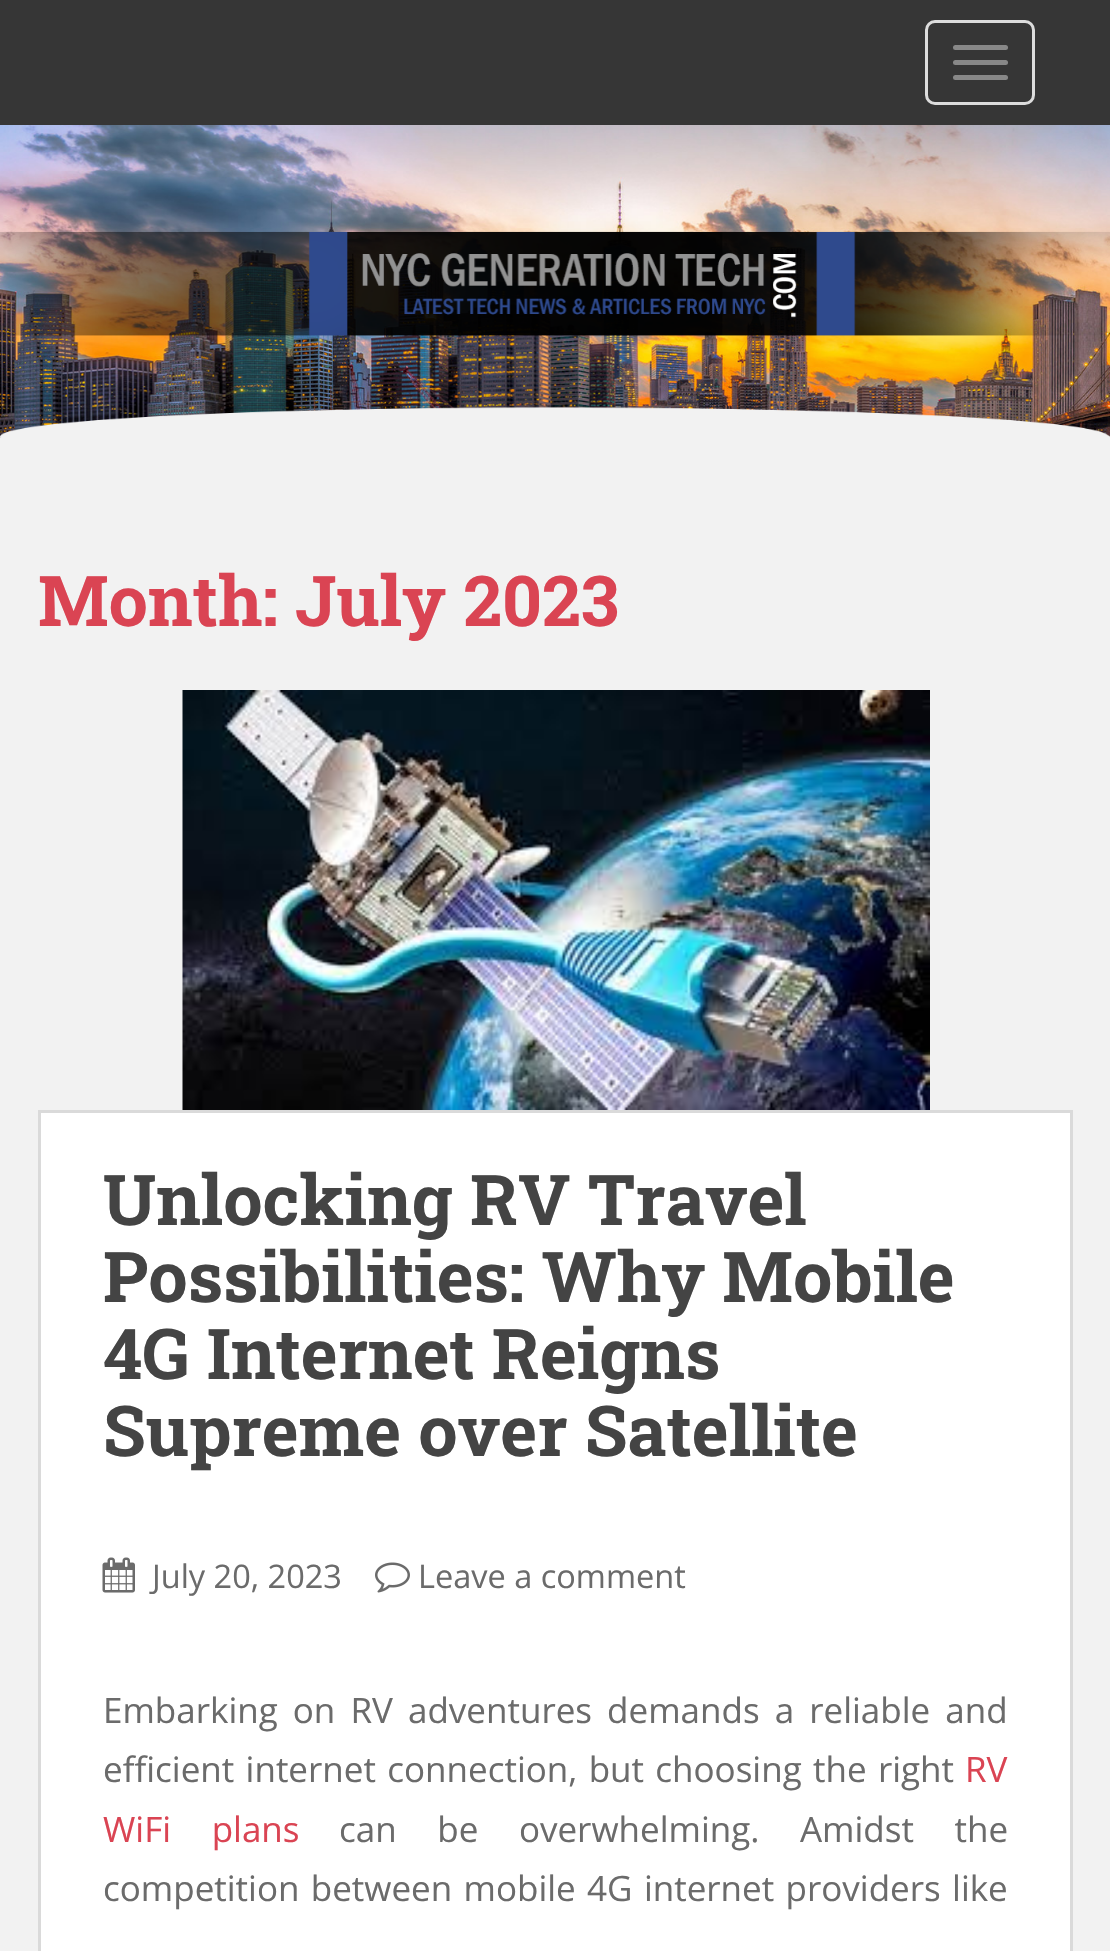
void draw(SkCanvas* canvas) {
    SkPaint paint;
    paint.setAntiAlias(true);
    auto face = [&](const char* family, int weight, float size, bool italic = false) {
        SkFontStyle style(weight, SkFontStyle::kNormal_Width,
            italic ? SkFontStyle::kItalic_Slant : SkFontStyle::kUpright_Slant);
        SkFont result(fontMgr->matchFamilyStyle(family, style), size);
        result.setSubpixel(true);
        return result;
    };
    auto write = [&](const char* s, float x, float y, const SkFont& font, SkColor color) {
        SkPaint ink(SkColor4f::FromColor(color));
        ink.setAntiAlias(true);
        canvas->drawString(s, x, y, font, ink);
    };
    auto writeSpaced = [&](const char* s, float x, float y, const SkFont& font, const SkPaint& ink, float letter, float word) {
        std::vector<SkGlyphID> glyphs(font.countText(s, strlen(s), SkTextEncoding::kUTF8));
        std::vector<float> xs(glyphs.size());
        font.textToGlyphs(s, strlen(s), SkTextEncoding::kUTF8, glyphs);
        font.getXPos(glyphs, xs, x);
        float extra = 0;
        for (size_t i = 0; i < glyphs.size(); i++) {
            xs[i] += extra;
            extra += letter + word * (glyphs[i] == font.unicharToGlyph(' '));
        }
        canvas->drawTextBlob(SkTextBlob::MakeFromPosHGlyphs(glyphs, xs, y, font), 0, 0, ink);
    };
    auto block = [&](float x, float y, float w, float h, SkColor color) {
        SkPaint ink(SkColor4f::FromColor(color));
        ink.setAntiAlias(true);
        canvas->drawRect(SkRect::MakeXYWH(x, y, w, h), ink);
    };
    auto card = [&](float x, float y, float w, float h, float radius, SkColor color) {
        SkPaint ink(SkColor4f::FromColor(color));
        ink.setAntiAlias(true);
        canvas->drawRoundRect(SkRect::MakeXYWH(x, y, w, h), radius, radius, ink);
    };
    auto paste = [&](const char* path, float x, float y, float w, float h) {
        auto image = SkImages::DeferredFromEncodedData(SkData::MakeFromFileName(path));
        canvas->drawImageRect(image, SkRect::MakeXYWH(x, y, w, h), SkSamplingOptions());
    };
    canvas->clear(SkColorSetRGB(242, 242, 242));
    block(0, 0, 1110, 125, SkColorSetRGB(54, 54, 54));
    paint.setStyle(SkPaint::kStroke_Style);
    paint.setStrokeWidth(3);
    paint.setColor(SkColorSetRGB(221, 221, 221));
    canvas->drawRoundRect(SkRect::MakeXYWH(926.5f, 21.5f, 107, 82), 8.5f, 8.5f, paint);
    card(953, 45, 55, 5, 2.5f, SkColorSetRGB(136, 136, 136));
    card(953, 60, 55, 5, 2.5f, SkColorSetRGB(136, 136, 136));
    card(953, 75, 55, 5, 2.5f, SkColorSetRGB(136, 136, 136));
    paste("pic1.png", 0, 125, 1110, 313);
    auto kFont1 = face("Roboto Slab", 700, 70);
    write("Month: July 2023", 38, 626, kFont1, SkColorSetRGB(218, 68, 83));
    paste("pic2.png", 182, 690, 748, 420);
    paint.setStyle(SkPaint::kFill_Style);
    paint.setColor(SK_ColorWHITE);
    canvas->drawRect(SkRect::MakeXYWH(39.5f, 1111.5f, 1032, 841), paint);
    paint.setStyle(SkPaint::kStroke_Style);
    paint.setColor(SkColorSetRGB(218, 218, 218));
    canvas->drawRect(SkRect::MakeXYWH(39.5f, 1111.5f, 1032, 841), paint);
    write("Unlocking RV Travel", 103, 1225, kFont1, SkColorSetRGB(68, 68, 68));
    write("Possibilities: Why Mobile", 103, 1302, kFont1, SkColorSetRGB(68, 68, 68));
    write("4G Internet Reigns", 103, 1379, kFont1, SkColorSetRGB(68, 68, 68));
    write("Supreme over Satellite", 103, 1456, kFont1, SkColorSetRGB(68, 68, 68));
    paste("pic3.png", 102, 1557, 33, 36);
    auto kFont2 = face("Open Sans", 400, 32.5f);
    write("July 20, 2023", 152, 1588, kFont2, SkColorSetRGB(107, 107, 107));
    paste("pic4.png", 375, 1562, 35, 31);
    write("Leave a comment", 418, 1588, kFont2, SkColorSetRGB(107, 107, 107));
    auto kFont3 = face("Open Sans", 400, 35);
    paint.setStyle(SkPaint::kFill_Style);
    paint.setColor(SkColorSetRGB(107, 107, 107));
    writeSpaced("Embarking on RV adventures demands a reliable and", 103, 1723, kFont3, paint, 0, 6);
    writeSpaced("efficient internet connection, but choosing the right", 103, 1782, kFont3, paint, 0, 2.25f);
    write("RV", 965, 1782, kFont3, SkColorSetRGB(218, 68, 83));
    paint.setColor(SkColorSetRGB(218, 68, 83));
    writeSpaced("WiFi plans", 103, 1842, kFont3, paint, 0, 31.5f);
    paint.setColor(SkColorSetRGB(107, 107, 107));
    writeSpaced("can be overwhelming. Amidst the", 339, 1842, kFont3, paint, 0, 31.5f);
    writeSpaced("competition between mobile 4G internet providers like", 103, 1901, kFont3, paint, 0, 2.25f);
}
